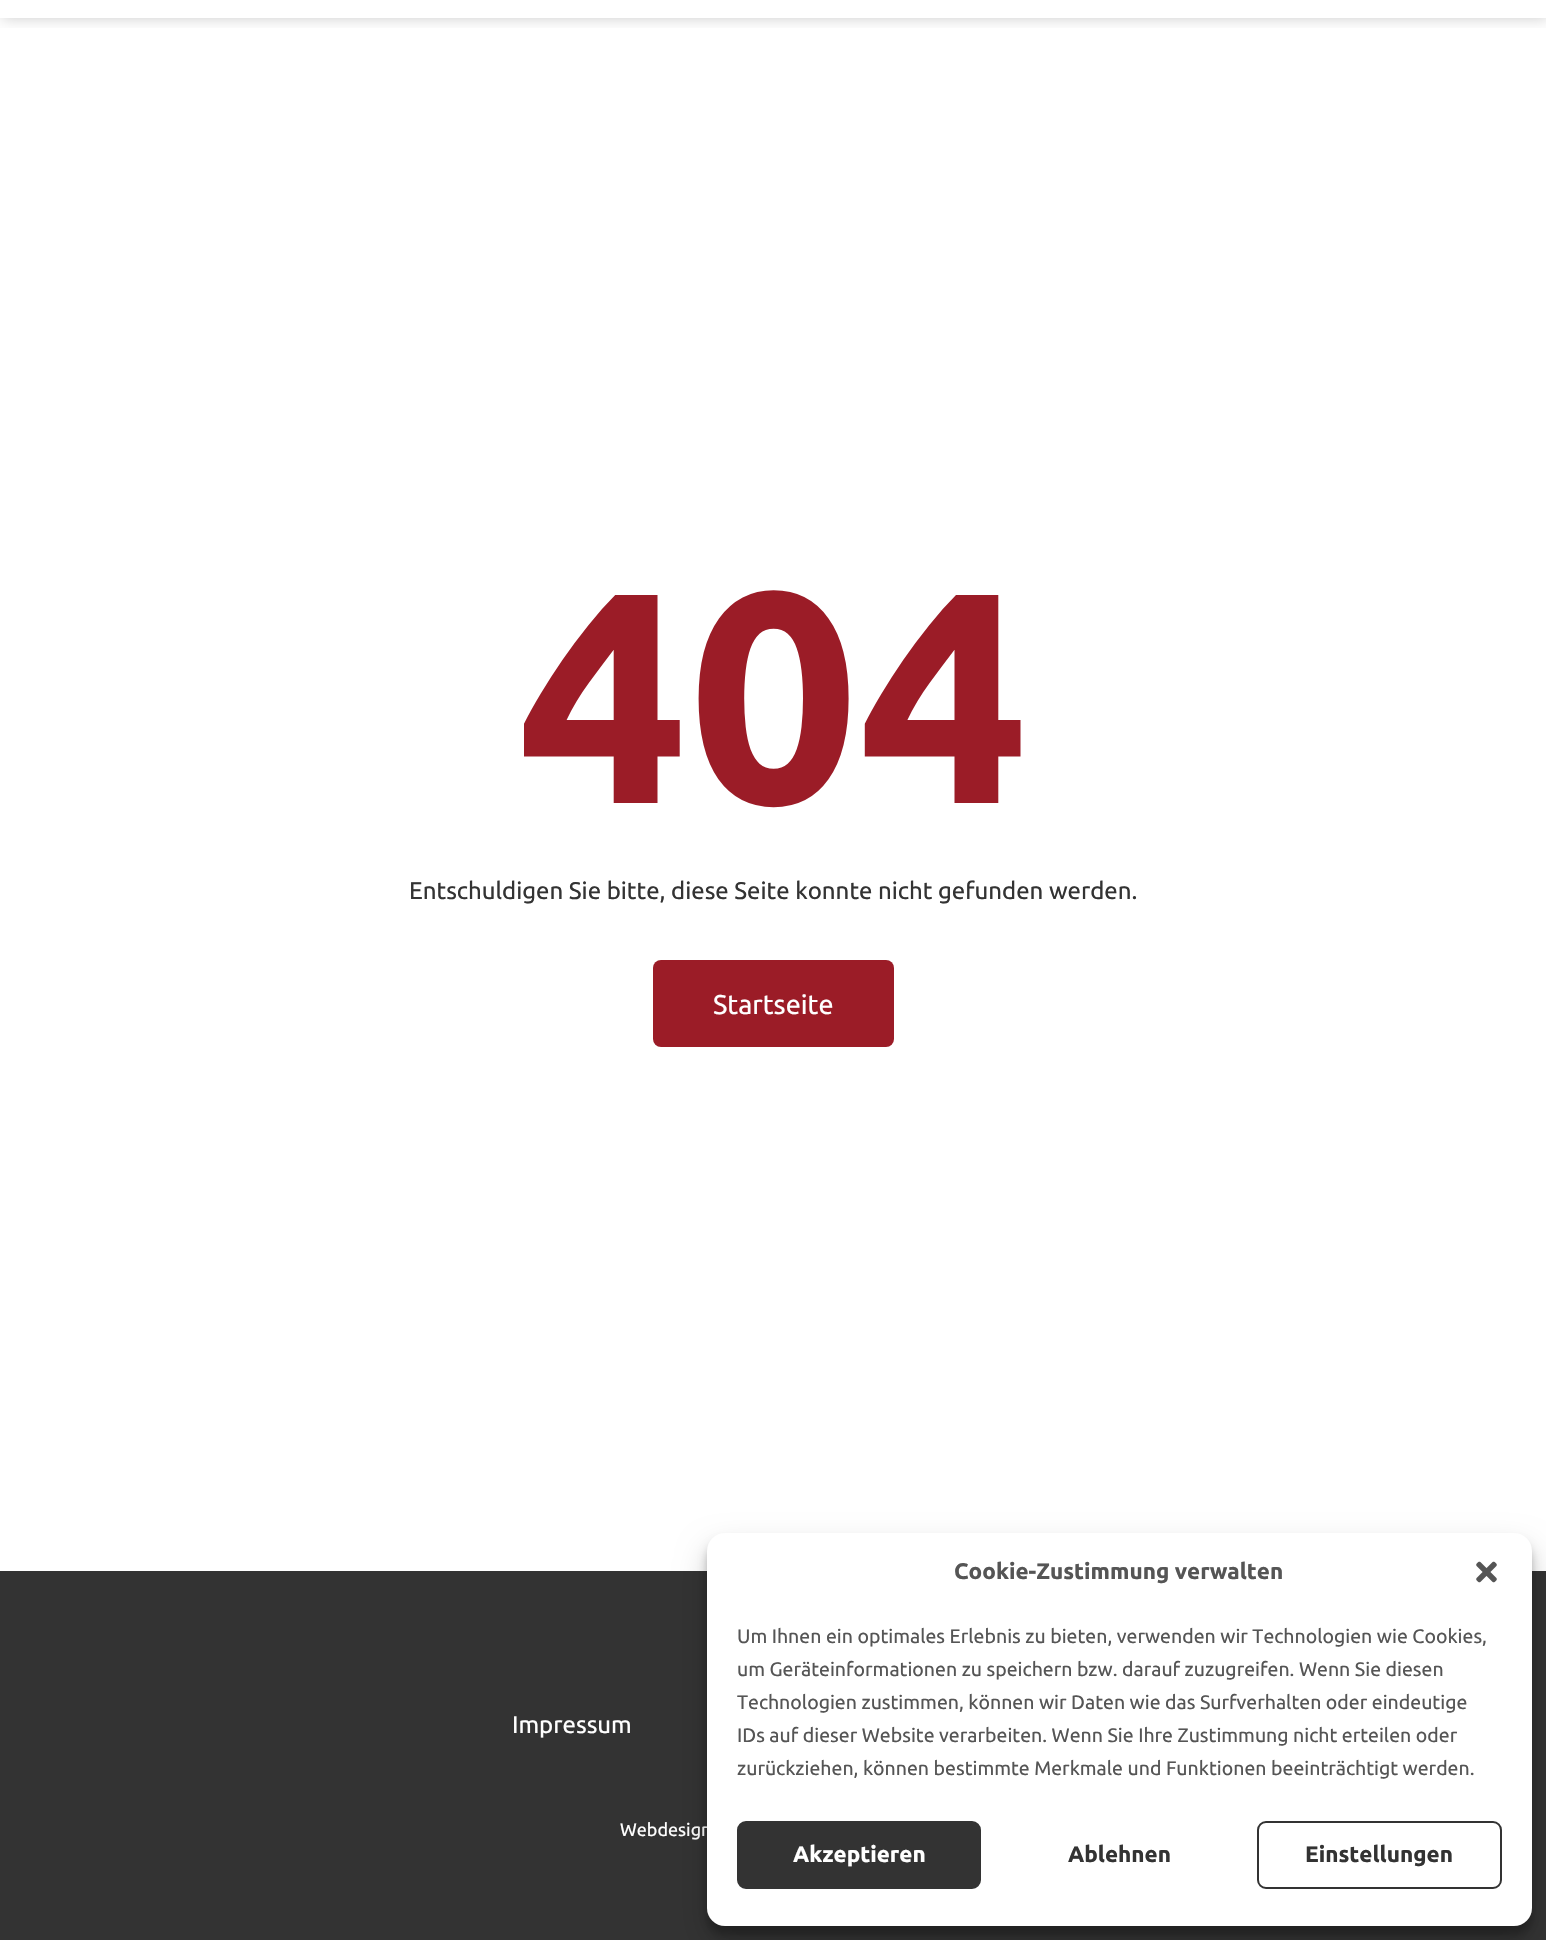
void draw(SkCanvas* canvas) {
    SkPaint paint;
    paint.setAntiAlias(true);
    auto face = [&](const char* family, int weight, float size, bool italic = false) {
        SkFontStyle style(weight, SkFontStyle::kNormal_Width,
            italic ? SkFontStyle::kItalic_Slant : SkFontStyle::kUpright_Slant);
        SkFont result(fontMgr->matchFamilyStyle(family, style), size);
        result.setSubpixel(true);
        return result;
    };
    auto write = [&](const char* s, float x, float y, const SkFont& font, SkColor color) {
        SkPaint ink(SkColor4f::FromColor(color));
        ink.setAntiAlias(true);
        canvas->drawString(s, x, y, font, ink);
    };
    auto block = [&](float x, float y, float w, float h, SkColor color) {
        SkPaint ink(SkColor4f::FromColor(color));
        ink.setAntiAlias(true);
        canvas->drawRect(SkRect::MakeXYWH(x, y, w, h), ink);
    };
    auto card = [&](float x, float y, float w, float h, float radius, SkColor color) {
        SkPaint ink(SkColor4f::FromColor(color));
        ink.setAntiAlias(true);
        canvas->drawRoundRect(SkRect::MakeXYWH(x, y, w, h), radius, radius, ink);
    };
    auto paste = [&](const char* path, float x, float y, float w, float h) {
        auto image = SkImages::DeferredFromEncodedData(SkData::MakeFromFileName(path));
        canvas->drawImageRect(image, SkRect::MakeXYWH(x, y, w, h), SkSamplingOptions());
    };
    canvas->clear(SK_ColorWHITE);
    canvas->save();
    canvas->clipRect(SkRect::MakeXYWH(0, 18, 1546, 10));
    paint.setColor(SkColorSetARGB(51, 0, 0, 0));
    paint.setMaskFilter(SkMaskFilter::MakeBlur(kNormal_SkBlurStyle, 7.5f));
    canvas->drawRect(SkRect::MakeXYWH(2, -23, 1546, 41), paint);
    paint.setMaskFilter(nullptr);
    canvas->restore();
    auto kFont1 = face("Ubuntu", 700, 300);
    write("404", 518, 803, kFont1, SkColorSetRGB(155, 28, 39));
    auto kFont2 = face("Ubuntu", 400, 24);
    write("Entschuldigen Sie bitte, diese Seite konnte nicht gefunden werden.", 409, 899, kFont2, SkColorSetRGB(51, 51, 51));
    card(653, 960, 241, 87, 8, SkColorSetRGB(155, 28, 39));
    auto kFont3 = face("Ubuntu", 400, 27);
    write("Startseite", 713, 1014, kFont3, SK_ColorWHITE);
    block(0, 1571, 1546, 369, SkColorSetRGB(51, 51, 51));
    write("Impressum", 512, 1733, kFont2, SK_ColorWHITE);
    auto kFont4 = face("Ubuntu", 400, 18);
    write("Webdesign", 620, 1836, kFont4, SK_ColorWHITE);
    paint.setColor(SkColorSetARGB(59, 0, 0, 0));
    paint.setMaskFilter(SkMaskFilter::MakeBlur(kNormal_SkBlurStyle, 4.5f));
    canvas->drawRoundRect(SkRect::MakeXYWH(707, 1542, 825, 393), 18, 18, paint);
    paint.setMaskFilter(nullptr);
    paint.setColor(SkColorSetARGB(48, 0, 0, 0));
    paint.setMaskFilter(SkMaskFilter::MakeBlur(kNormal_SkBlurStyle, 15));
    canvas->drawRoundRect(SkRect::MakeXYWH(707, 1548, 825, 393), 18, 18, paint);
    paint.setMaskFilter(nullptr);
    card(707, 1533, 825, 393, 18, SK_ColorWHITE);
    auto kFont5 = face("Ubuntu", 700, 22.5f);
    write("Cookie-Zustimmung verwalten", 954, 1579, kFont5, SkColorSetRGB(85, 85, 85));
    paste("pic1.png", 1476, 1561, 21, 22);
    auto kFont6 = face("Ubuntu", 400, 19.5f);
    write("Um Ihnen ein optimales Erlebnis zu bieten, verwenden wir Technologien wie Cookies,", 737, 1643, kFont6, SkColorSetRGB(85, 85, 85));
    write("um Geräteinformationen zu speichern bzw. darauf zuzugreifen. Wenn Sie diesen", 737, 1676, kFont6, SkColorSetRGB(85, 85, 85));
    write("Technologien zustimmen, können wir Daten wie das Surfverhalten oder eindeutige", 737, 1709, kFont6, SkColorSetRGB(85, 85, 85));
    write("IDs auf dieser Website verarbeiten. Wenn Sie Ihre Zustimmung nicht erteilen oder", 737, 1742, kFont6, SkColorSetRGB(85, 85, 85));
    write("zurückziehen, können bestimmte Merkmale und Funktionen beeinträchtigt werden.", 737, 1775, kFont6, SkColorSetRGB(85, 85, 85));
    paint.setColor(SkColorSetRGB(51, 51, 51));
    canvas->drawRoundRect(SkRect::MakeXYWH(738, 1822, 242, 66), 8, 8, paint);
    paint.setStyle(SkPaint::kStroke_Style);
    paint.setStrokeWidth(2);
    canvas->drawRoundRect(SkRect::MakeXYWH(738, 1822, 242, 66), 8, 8, paint);
    write("Akzeptieren", 793, 1862, kFont5, SK_ColorWHITE);
    write("Ablehnen", 1068, 1862, kFont5, SkColorSetRGB(51, 51, 51));
    canvas->drawRoundRect(SkRect::MakeXYWH(1258, 1822, 243, 66), 8, 8, paint);
    write("Einstellungen", 1305, 1862, kFont5, SkColorSetRGB(51, 51, 51));
}
